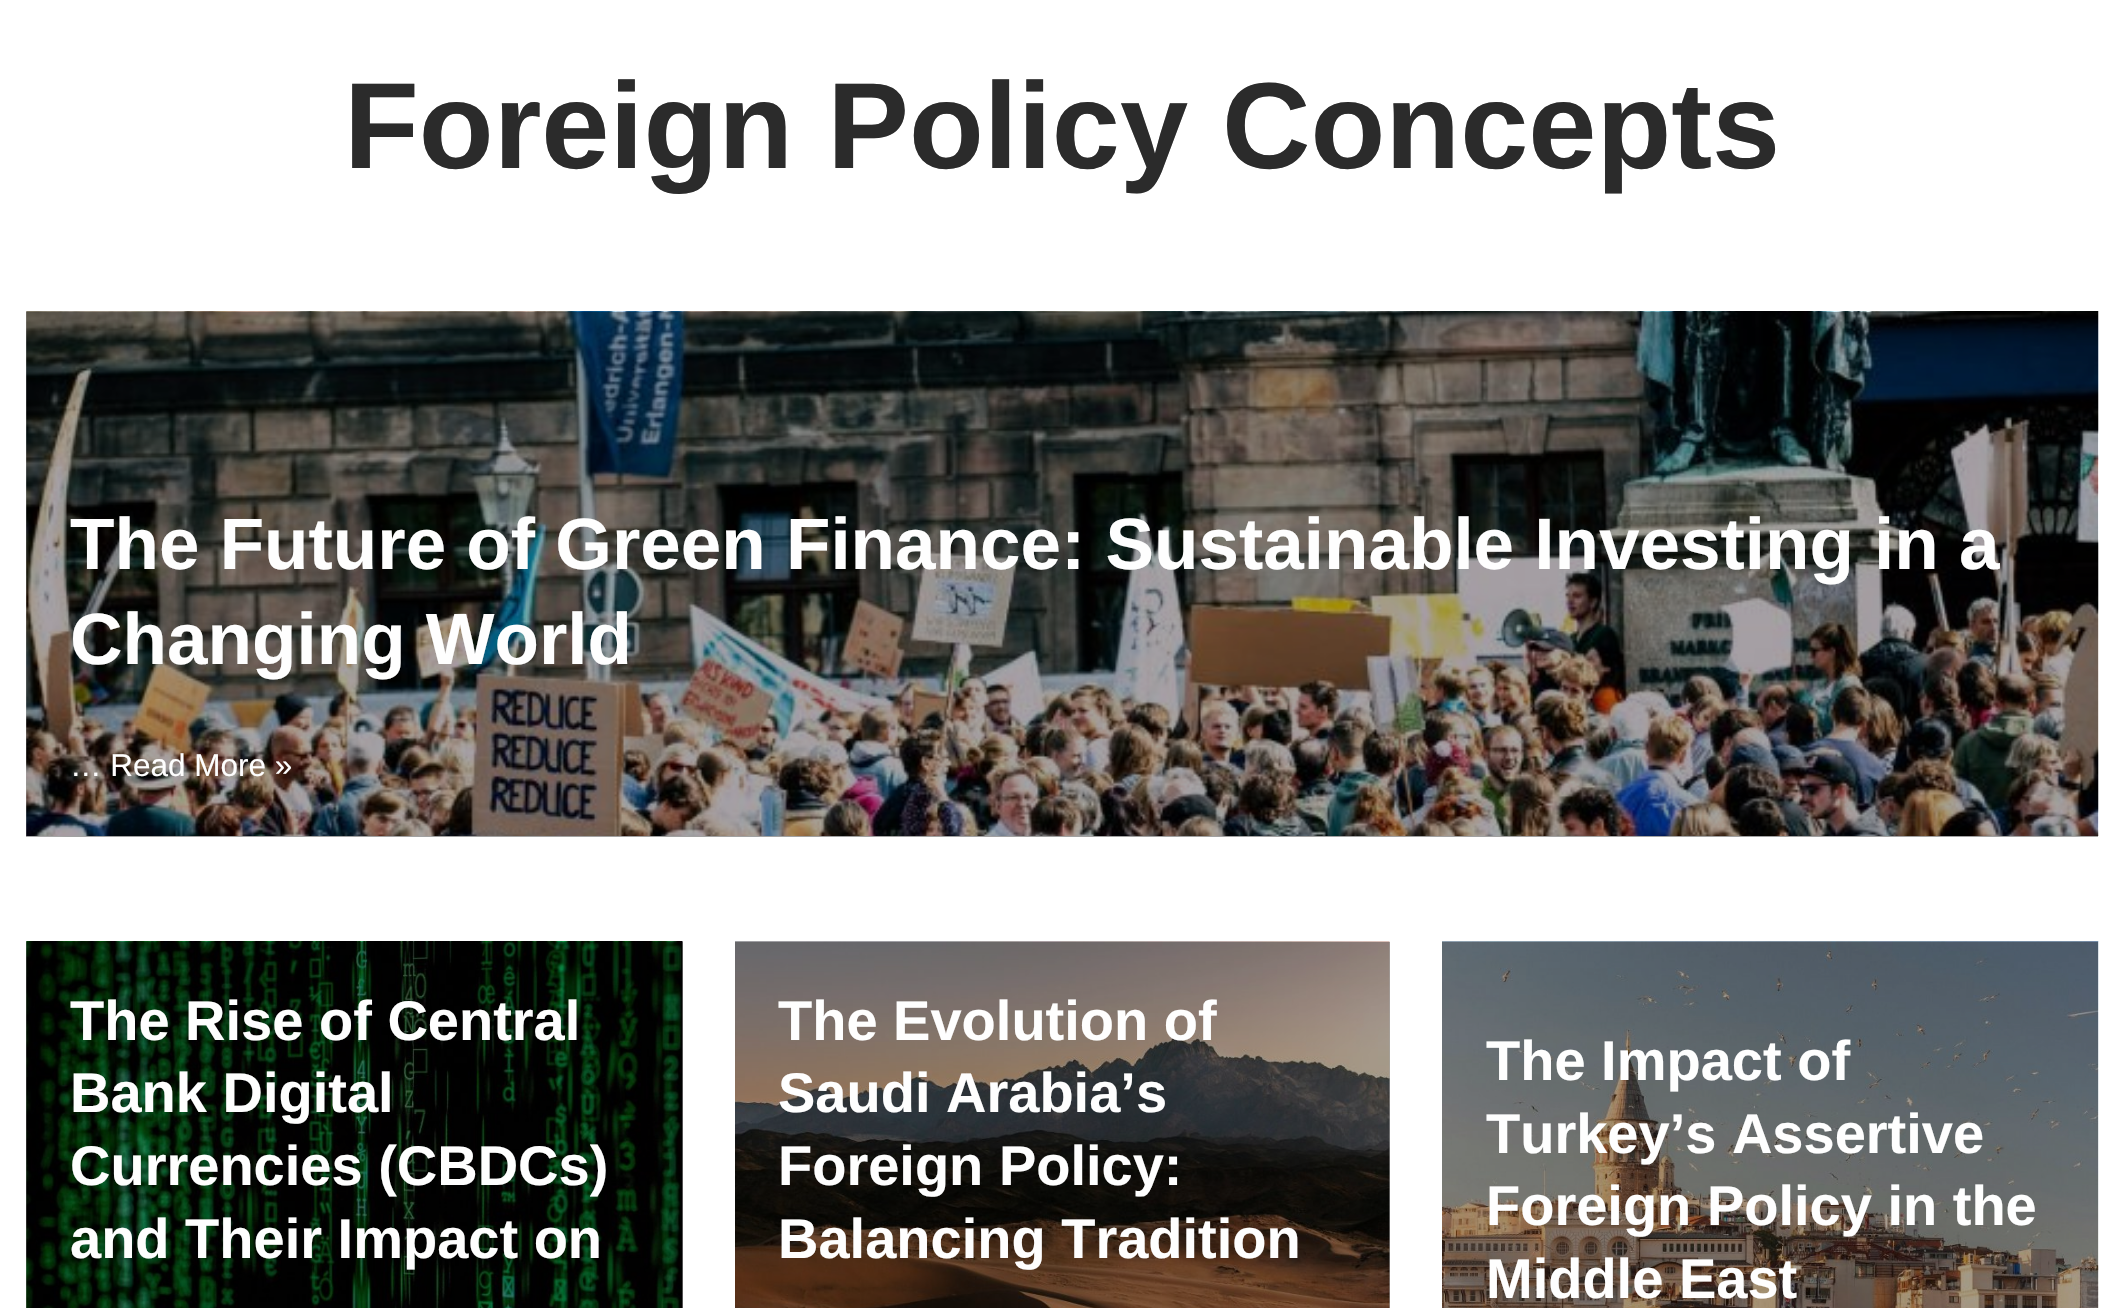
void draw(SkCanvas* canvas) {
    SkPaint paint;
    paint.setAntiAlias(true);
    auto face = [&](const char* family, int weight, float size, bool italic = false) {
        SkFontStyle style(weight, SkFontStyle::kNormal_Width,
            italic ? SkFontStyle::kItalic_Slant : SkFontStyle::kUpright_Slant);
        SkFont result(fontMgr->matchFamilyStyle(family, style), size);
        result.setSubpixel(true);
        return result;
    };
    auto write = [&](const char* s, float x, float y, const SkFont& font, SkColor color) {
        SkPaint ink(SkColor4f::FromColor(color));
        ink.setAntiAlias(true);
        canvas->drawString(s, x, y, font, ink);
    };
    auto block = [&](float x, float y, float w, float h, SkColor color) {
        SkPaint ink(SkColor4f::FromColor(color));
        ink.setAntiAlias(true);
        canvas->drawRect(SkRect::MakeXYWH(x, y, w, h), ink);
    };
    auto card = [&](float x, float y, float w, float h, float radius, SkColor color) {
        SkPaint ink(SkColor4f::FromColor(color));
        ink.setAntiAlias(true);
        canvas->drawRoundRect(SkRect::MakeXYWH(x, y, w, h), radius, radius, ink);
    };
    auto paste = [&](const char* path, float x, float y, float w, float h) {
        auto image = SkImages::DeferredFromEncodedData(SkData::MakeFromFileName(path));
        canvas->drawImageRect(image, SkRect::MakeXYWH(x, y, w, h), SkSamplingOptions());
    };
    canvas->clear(SK_ColorWHITE);
    block(1389, 942, 1, 366, SkColorSetRGB(166, 166, 166));
    block(26, 942, 657, 366, SkColorSetRGB(166, 166, 166));
    block(26, 312, 2072, 525, SkColorSetRGB(166, 166, 166));
    auto kFont1 = face("Liberation Sans", 700, 122.5f);
    write("Foreign Policy Concepts", 344, 168, kFont1, SkColorSetRGB(43, 43, 43));
    card(26, 312, 2072, 525, 42, SkColorSetRGB(161, 161, 161));
    paste("pic1.png", 26, 311, 2073, 525);
    auto kFont2 = face("Liberation Sans", 700, 72.8f);
    write("The Future of Green Finance: Sustainable Investing in a", 70, 569, kFont2, SkColorSetRGB(254, 254, 254));
    write("Changing World", 70, 664, kFont2, SkColorSetRGB(254, 254, 254));
    auto kFont3 = face("Liberation Sans", 400, 31.5f);
    write("… Read More »", 70, 776, kFont3, SkColorSetRGB(254, 254, 254));
    paste("pic2.png", 26, 941, 657, 367);
    auto kFont4 = face("Liberation Sans", 700, 56);
    write("The Rise of Central", 70, 1040, kFont4, SkColorSetRGB(254, 254, 254));
    write("Bank Digital", 70, 1112, kFont4, SkColorSetRGB(254, 254, 254));
    write("Currencies (CBDCs)", 70, 1185, kFont4, SkColorSetRGB(254, 254, 254));
    write("and Their Impact on", 70, 1258, kFont4, SkColorSetRGB(254, 254, 254));
    paste("pic3.png", 735, 941, 655, 367);
    write("The Evolution of", 778, 1040, kFont4, SkColorSetRGB(254, 254, 254));
    write("Saudi Arabia’s", 778, 1112, kFont4, SkColorSetRGB(254, 254, 254));
    write("Foreign Policy:", 778, 1185, kFont4, SkColorSetRGB(254, 254, 254));
    write("Balancing Tradition", 778, 1258, kFont4, SkColorSetRGB(254, 254, 254));
    paste("pic4.png", 1442, 941, 657, 367);
    write("The Impact of", 1486, 1080, kFont4, SkColorSetRGB(254, 254, 254));
    write("Turkey’s Assertive", 1486, 1153, kFont4, SkColorSetRGB(254, 254, 254));
    write("Foreign Policy in the", 1486, 1225, kFont4, SkColorSetRGB(254, 254, 254));
    write("Middle East", 1486, 1298, kFont4, SkColorSetRGB(254, 254, 254));
}
